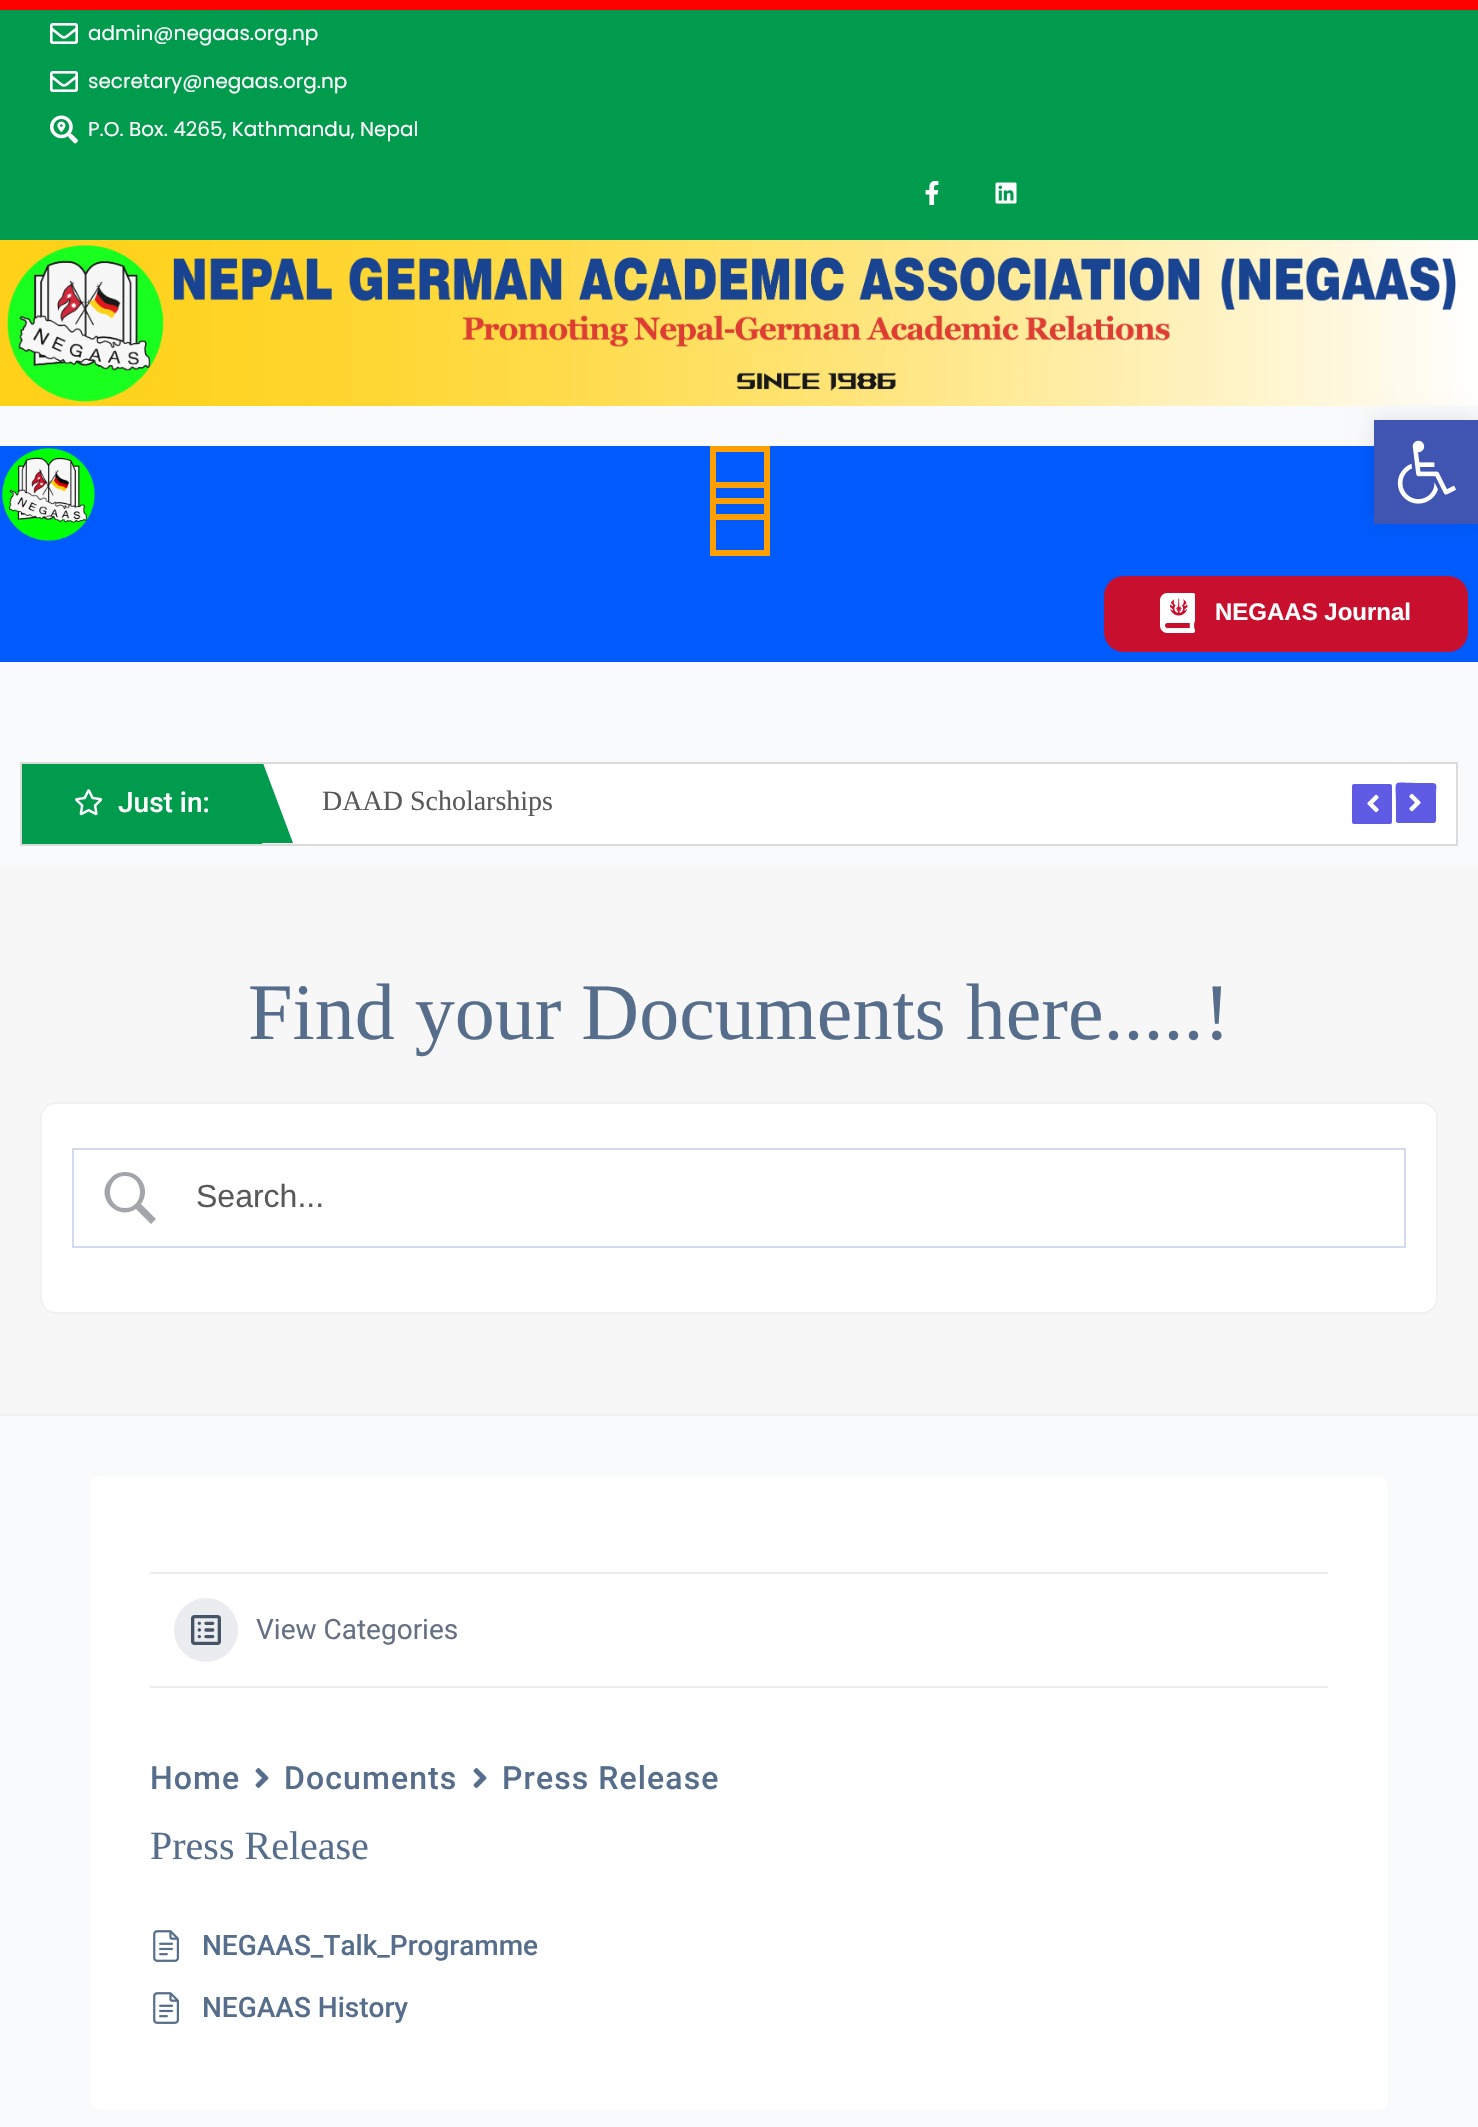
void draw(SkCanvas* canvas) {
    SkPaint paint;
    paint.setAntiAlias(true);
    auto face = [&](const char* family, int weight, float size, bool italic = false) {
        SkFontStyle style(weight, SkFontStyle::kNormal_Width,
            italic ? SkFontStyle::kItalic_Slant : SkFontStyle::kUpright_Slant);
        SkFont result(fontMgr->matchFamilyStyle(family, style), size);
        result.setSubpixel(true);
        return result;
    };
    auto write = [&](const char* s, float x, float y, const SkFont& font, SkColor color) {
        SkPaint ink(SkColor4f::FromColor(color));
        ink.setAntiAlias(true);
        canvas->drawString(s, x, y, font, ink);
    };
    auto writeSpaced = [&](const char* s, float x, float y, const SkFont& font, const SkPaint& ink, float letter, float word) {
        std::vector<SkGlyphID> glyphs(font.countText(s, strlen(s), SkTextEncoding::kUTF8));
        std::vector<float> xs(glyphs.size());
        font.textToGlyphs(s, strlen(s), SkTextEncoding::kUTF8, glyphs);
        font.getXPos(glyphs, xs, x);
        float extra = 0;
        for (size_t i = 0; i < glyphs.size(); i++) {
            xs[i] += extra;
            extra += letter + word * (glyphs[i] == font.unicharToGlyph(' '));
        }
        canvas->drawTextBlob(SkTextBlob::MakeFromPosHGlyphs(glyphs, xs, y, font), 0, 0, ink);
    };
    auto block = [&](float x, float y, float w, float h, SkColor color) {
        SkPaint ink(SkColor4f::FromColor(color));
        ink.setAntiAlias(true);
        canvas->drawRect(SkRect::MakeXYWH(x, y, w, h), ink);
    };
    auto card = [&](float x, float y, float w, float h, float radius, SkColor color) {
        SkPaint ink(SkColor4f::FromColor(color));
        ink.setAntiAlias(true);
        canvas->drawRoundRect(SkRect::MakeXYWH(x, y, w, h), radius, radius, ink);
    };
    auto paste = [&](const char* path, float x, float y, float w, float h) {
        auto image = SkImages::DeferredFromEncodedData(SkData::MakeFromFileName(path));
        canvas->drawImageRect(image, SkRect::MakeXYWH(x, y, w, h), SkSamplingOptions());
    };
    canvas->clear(SkColorSetRGB(249, 250, 251));
    block(0, 0, 1478, 10, SkColorSetRGB(255, 0, 0));
    block(0, 10, 1478, 230, SkColorSetRGB(0, 155, 77));
    paste("pic1.png", 50, 23, 28, 21);
    auto kFont1 = face("Poppins", 400, 20);
    write("admin@negaas.org.np", 88, 40, kFont1, SK_ColorWHITE);
    paste("pic1.png", 50, 71, 28, 21);
    write("secretary@negaas.org.np", 88, 88, kFont1, SK_ColorWHITE);
    paste("pic2.png", 50, 115, 28, 29);
    write("P.O. Box. 4265, Kathmandu, Nepal", 88, 136, kFont1, SK_ColorWHITE);
    paste("pic3.png", 925, 181, 14, 24);
    paste("pic4.png", 995, 182, 22, 22);
    paste("pic5.png", 0, 240, 1478, 166);
    block(0, 446, 1478, 216, SkColorSetRGB(0, 91, 255));
    paste("pic6.png", 2, 448, 93, 93);
    paint.setStyle(SkPaint::kStroke_Style);
    paint.setStrokeWidth(6);
    paint.setColor(SkColorSetRGB(255, 160, 0));
    canvas->drawRect(SkRect::MakeXYWH(713, 449, 54, 104), paint);
    block(716, 482, 48, 6, SkColorSetRGB(255, 160, 0));
    block(716, 498, 48, 6, SkColorSetRGB(255, 160, 0));
    block(716, 514, 48, 6, SkColorSetRGB(255, 160, 0));
    card(1104, 576, 364, 76, 20, SkColorSetRGB(200, 16, 46));
    paste("pic7.png", 1160, 593, 35, 40);
    auto kFont2 = face("Liberation Sans", 700, 24);
    write("NEGAAS Journal", 1215, 620, kFont2, SK_ColorWHITE);
    paint.setStrokeWidth(2);
    paint.setColor(SkColorSetRGB(219, 219, 219));
    canvas->drawRect(SkRect::MakeXYWH(21, 763, 1436, 82), paint);
    block(22, 764, 240, 80, SkColorSetRGB(0, 155, 77));
    block(262, 764, 1194, 80, SK_ColorWHITE);
    canvas->save();
    canvas->clipRect(SkRect::MakeXYWH(22, 764, 1434, 80));
    paint.setStyle(SkPaint::kFill_Style);
    paint.setColor(SkColorSetRGB(0, 155, 77));
    canvas->drawPath(SkPathBuilder().moveTo(23, 763).lineTo(263, 763).lineTo(293, 843).lineTo(53, 843).close().detach(), paint);
    canvas->restore();
    paste("pic8.png", 75, 789, 28, 27);
    auto kFont3 = face("Roboto", 500, 28);
    write("Just in:", 118, 812, kFont3, SK_ColorWHITE);
    auto kFont4 = face("Liberation Serif", 400, 28);
    write("DAAD Scholarships", 322, 810, kFont4, SkColorSetRGB(89, 89, 89));
    card(1352, 784, 40, 40, 2, SkColorSetRGB(96, 91, 229));
    paste("pic9.png", 1367, 794, 12, 19);
    paint.setColor(SkColorSetRGB(96, 91, 229));
    canvas->drawPath(SkPathBuilder().moveTo(1434, 823).lineTo(1398, 823).lineTo(1396, 822).lineTo(1396, 803).cubicTo(1396, 778, 1391, 783, 1416, 783).lineTo(1428, 783).cubicTo(1439, 783, 1436, 783, 1436, 797).lineTo(1436, 815).cubicTo(1436, 816, 1437, 823, 1434, 823).close().detach(), paint);
    paste("pic10.png", 1409, 793, 12, 19);
    block(0, 866, 1478, 548, SkColorSetRGB(247, 247, 247));
    block(0, 1414, 1478, 2, SkColorSetRGB(241, 241, 241));
    auto kFont5 = face("Liberation Serif", 400, 80);
    write("Find your Documents here.....!", 248, 1039, kFont5, SkColorSetRGB(86, 110, 139));
    paint.setColor(SK_ColorWHITE);
    canvas->drawRoundRect(SkRect::MakeXYWH(41, 1103, 1396, 210), 15, 15, paint);
    paint.setStyle(SkPaint::kStroke_Style);
    paint.setColor(SkColorSetRGB(241, 241, 241));
    canvas->drawRoundRect(SkRect::MakeXYWH(41, 1103, 1396, 210), 15, 15, paint);
    paint.setColor(SkColorSetRGB(211, 217, 239));
    canvas->drawRect(SkRect::MakeXYWH(73, 1149, 1332, 98), paint);
    paint.setStyle(SkPaint::kFill_Style);
    paint.setColor(SkColorSetRGB(162, 165, 170));
    canvas->drawPath(SkPathBuilder().moveTo(125, 1172).cubicTo(120, 1172, 114, 1174, 111, 1178).cubicTo(93, 1195, 116, 1222, 136, 1209).lineTo(151, 1224).lineTo(156, 1219).lineTo(141, 1204).cubicTo(151, 1191, 142, 1172, 125, 1172).close().moveTo(125, 1176).cubicTo(145, 1176, 145, 1208, 125, 1208).cubicTo(105, 1208, 105, 1176, 125, 1176).close().detach(), paint);
    auto kFont6 = face("Liberation Sans", 400, 32);
    write("Search...", 196, 1207, kFont6, SkColorSetRGB(89, 89, 89));
    card(90, 1476, 1298, 634, 10, SK_ColorWHITE);
    block(150, 1572, 1178, 2, SkColorSetRGB(234, 236, 240));
    block(150, 1686, 1178, 2, SkColorSetRGB(234, 236, 240));
    paint.setColor(SkColorSetRGB(234, 236, 240));
    canvas->drawCircle(206, 1630, 32, paint);
    paste("pic11.png", 191, 1615, 30, 30);
    auto kFont7 = face("Roboto", 400, 28);
    write("View Categories", 256, 1639, kFont7, SkColorSetRGB(102, 112, 133));
    auto kFont8 = face("Roboto", 500, 32);
    paint.setColor(SkColorSetRGB(86, 110, 139));
    writeSpaced("Home", 150, 1789, kFont8, paint, 1.1f, 0);
    paste("pic12.png", 255, 1768, 14, 20);
    writeSpaced("Documents", 284, 1789, kFont8, paint, 1.1f, 0);
    paste("pic12.png", 473, 1768, 14, 20);
    writeSpaced("Press Release", 502, 1789, kFont8, paint, 1.1f, 0);
    auto kFont9 = face("Liberation Serif", 400, 40);
    write("Press Release", 150, 1859, kFont9, SkColorSetRGB(86, 110, 139));
    paste("pic13.png", 153, 1930, 26, 32);
    write("NEGAAS_Talk_Programme", 202, 1955, kFont3, SkColorSetRGB(86, 110, 139));
    paste("pic13.png", 153, 1992, 26, 32);
    write("NEGAAS History", 202, 2017, kFont3, SkColorSetRGB(86, 110, 139));
    paint.setColor(SkColorSetARGB(26, 0, 0, 0));
    paint.setMaskFilter(SkMaskFilter::MakeBlur(kNormal_SkBlurStyle, 10));
    canvas->drawRect(SkRect::MakeXYWH(1374, 420, 104, 104), paint);
    paint.setMaskFilter(nullptr);
    block(1374, 420, 104, 104, SkColorSetRGB(64, 84, 178));
    paste("pic14.png", 1397, 440, 59, 64);
}
